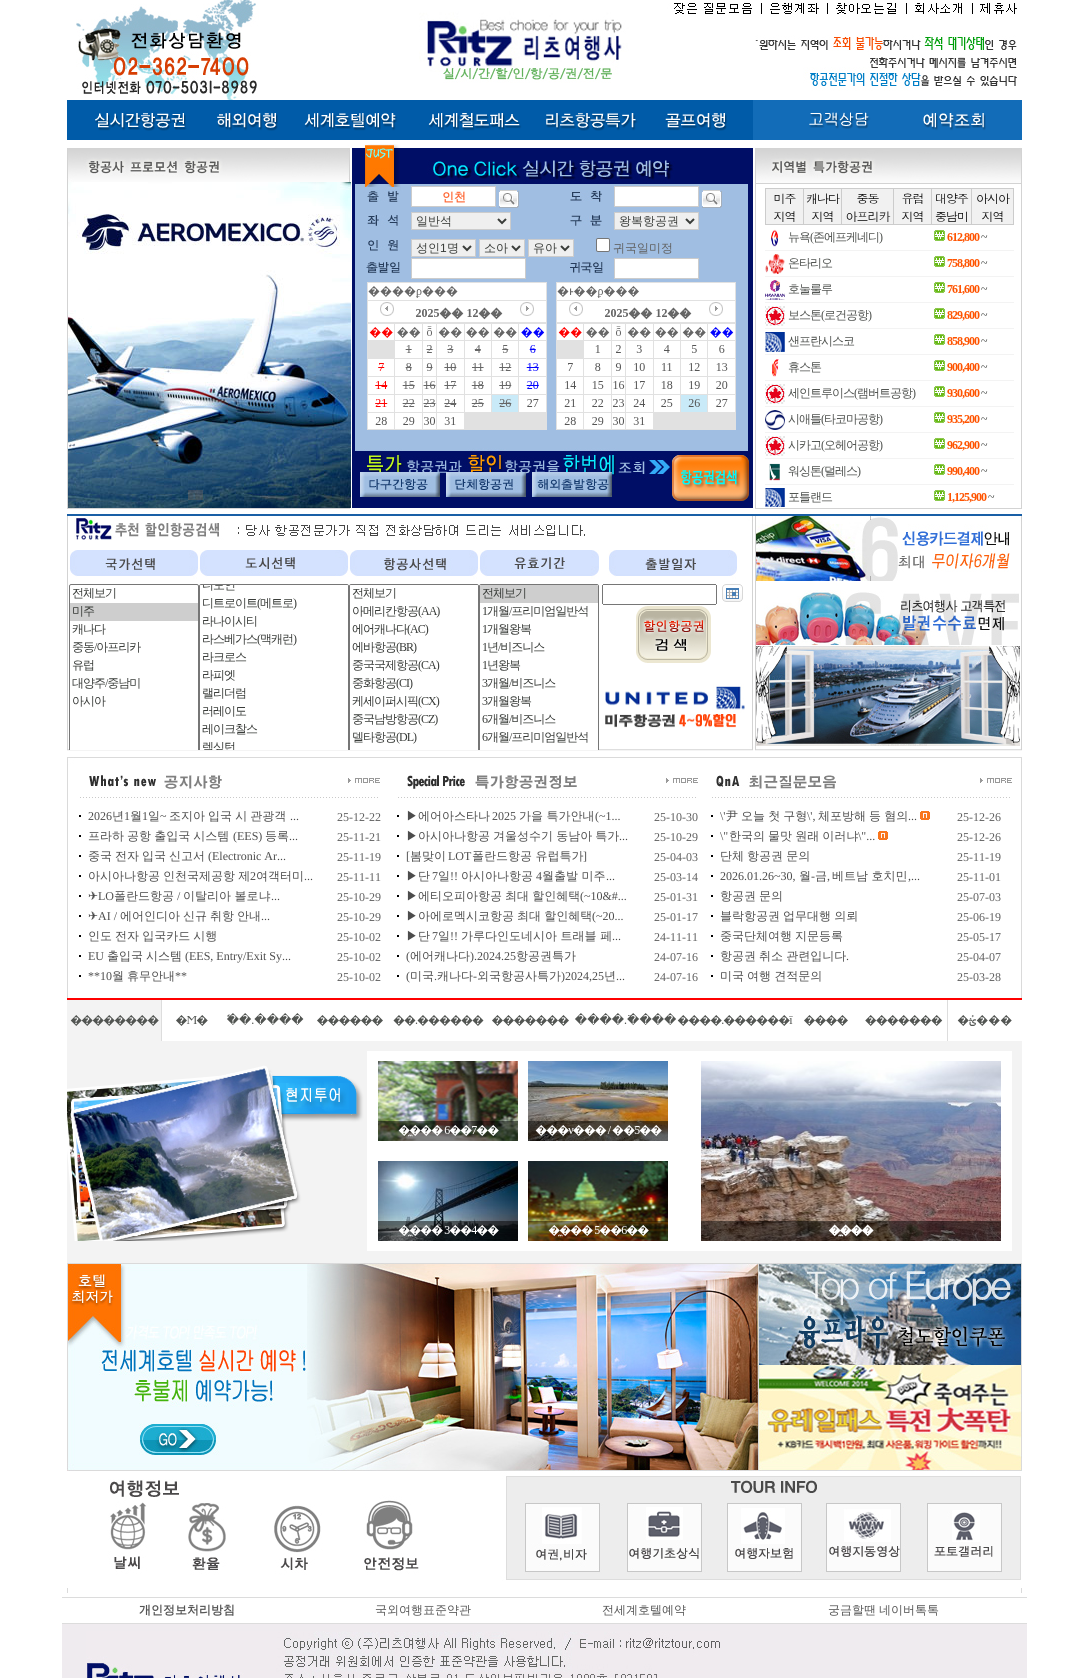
#include <cairo.h>
#include <math.h>
#include <stddef.h>

typedef struct { const char *family; double size; int italic, bold; unsigned color; } style_t;
static cairo_t *ctx;

static void ink(unsigned color) {
    cairo_set_source_rgb(ctx, (color >> 16) / 255.0, (color >> 8 & 255) / 255.0, (color & 255) / 255.0);
}

static void write(double x, double y, const char *s, const style_t *st) {
    cairo_select_font_face(ctx, st->family, st->italic ? CAIRO_FONT_SLANT_ITALIC : CAIRO_FONT_SLANT_NORMAL,
        st->bold ? CAIRO_FONT_WEIGHT_BOLD : CAIRO_FONT_WEIGHT_NORMAL);
    cairo_set_font_size(ctx, st->size);
    ink(st->color);
    cairo_move_to(ctx, x, y);
    cairo_show_text(ctx, s);
}

static void write_spaced(double x, double y, const char *s, double letter, double word) {
    cairo_move_to(ctx, x, y);
    while (*s) {
        char ch[5] = {0};
        int n = 0;
        do ch[n++] = *s++; while ((*s & 0xC0) == 0x80);
        cairo_show_text(ctx, ch);
        cairo_rel_move_to(ctx, letter + word * (*ch == ' '), 0);
    }
}

static void block(double x, double y, double w, double h, unsigned color) {
    ink(color);
    cairo_rectangle(ctx, x, y, w, h);
    cairo_fill(ctx);
}

static void round_path(double x, double y, double w, double h, double r) {
    cairo_new_sub_path(ctx);
    cairo_arc(ctx, x + w - r, y + h - r, r, 0, M_PI / 2);
    cairo_arc(ctx, x + r, y + h - r, r, M_PI / 2, M_PI);
    cairo_arc(ctx, x + r, y + r, r, M_PI, 1.5 * M_PI);
    cairo_arc(ctx, x + w - r, y + r, r, 1.5 * M_PI, 2 * M_PI);
    cairo_close_path(ctx);
}

static void paste(const char *path, double x, double y, double w, double h) {
    cairo_surface_t *image = cairo_image_surface_create_from_png(path);
    cairo_save(ctx);
    cairo_set_source_surface(ctx, image, x, y);
    cairo_rectangle(ctx, x, y, w, h);
    cairo_fill(ctx);
    cairo_restore(ctx);
    cairo_surface_destroy(image);
}

static const style_t s1 = {"WenQuanYi Zen Hei", 12, 0, 1, 0xff6633};
static const style_t s2 = {"WenQuanYi Zen Hei Medium", 12, 0, 0, 0x393c39};
static const style_t s3 = {"Liberation Sans", 12, 0, 0, 0x393c39};
static const style_t s4 = {"WenQuanYi Zen Hei Medium", 12, 0, 0, 0x606060};
static const style_t s5 = {"Liberation Serif", 12, 0, 0, 0x4c4c4c};
static const style_t s6 = {"WenQuanYi Zen Hei Medium", 12, 0, 0, 0x4c4c4c};
static const style_t s7 = {"Liberation Serif", 12, 0, 0, 0x606060};
static const style_t s8 = {"DejaVu Sans", 12, 0, 0, 0x4c4c4c};
static const style_t s9 = {"WenQuanYi Zen Hei", 12, 0, 1, 0x555555};
static const style_t s10 = {"WenQuanYi Zen Hei Medium", 12, 0, 0, 0x555555};

int main(void) {
    cairo_surface_t *surface = cairo_image_surface_create(CAIRO_FORMAT_RGB24, 1089, 1678);
    ctx = cairo_create(surface);
    cairo_font_options_t *options = cairo_font_options_create();
    cairo_font_options_set_hint_metrics(options, CAIRO_HINT_METRICS_OFF);
    cairo_font_options_set_hint_style(options, CAIRO_HINT_STYLE_NONE);
    cairo_set_font_options(ctx, options);
    cairo_set_miter_limit(ctx, 4);
    ink(0xffffff);
    cairo_paint(ctx);
    paste("pic1.png", 76, 0, 941, 100);
    block(67, 100, 955, 40, 0x005ba8);
    paste("pic2.png", 95, 100, 927, 40);
    paste("pic3.png", 67, 144, 955, 365);
    paste("pic4.png", 68, 182, 283, 326);
    paste("pic5.png", 365, 187, 35, 15);
    ink(0xffffff);
    cairo_rectangle(ctx, 411.5, 186.5, 84, 20);
    cairo_fill_preserve(ctx);
    ink(0xcccccc);
    cairo_set_line_width(ctx, 1);
    cairo_stroke(ctx);
    write(442, 201, "인천", &s1);
    paste("pic6.png", 498, 190, 21, 18);
    paste("pic7.png", 570, 191, 32, 11);
    ink(0xffffff);
    cairo_rectangle(ctx, 614.5, 186.5, 84, 20);
    cairo_fill_preserve(ctx);
    ink(0xcccccc);
    cairo_stroke(ctx);
    paste("pic6.png", 701, 190, 21, 18);
    paste("pic8.png", 367, 215, 31, 11);
    ink(0xefefef);
    cairo_rectangle(ctx, 411.5, 212.5, 99, 17);
    cairo_fill_preserve(ctx);
    ink(0xcccccc);
    cairo_stroke(ctx);
    cairo_new_path(ctx);
    cairo_move_to(ctx, 498, 219);
    cairo_line_to(ctx, 502, 223);
    cairo_line_to(ctx, 506, 219);
    ink(0x393c39);
    cairo_set_line_width(ctx, 2);
    cairo_stroke(ctx);
    write(416, 225, "일반석", &s2);
    paste("pic9.png", 570, 215, 32, 11);
    ink(0xefefef);
    cairo_rectangle(ctx, 614.5, 212.5, 84, 17);
    cairo_fill_preserve(ctx);
    ink(0xcccccc);
    cairo_set_line_width(ctx, 1);
    cairo_stroke(ctx);
    cairo_new_path(ctx);
    cairo_move_to(ctx, 686, 219);
    cairo_line_to(ctx, 690, 223);
    cairo_line_to(ctx, 694, 219);
    ink(0x393c39);
    cairo_set_line_width(ctx, 2);
    cairo_stroke(ctx);
    write(619, 225, "왕복항공권", &s2);
    paste("pic10.png", 368, 240, 30, 11);
    ink(0xefefef);
    cairo_rectangle(ctx, 411.5, 239.5, 64, 17);
    cairo_fill_preserve(ctx);
    ink(0xcccccc);
    cairo_set_line_width(ctx, 1);
    cairo_stroke(ctx);
    cairo_new_path(ctx);
    cairo_move_to(ctx, 463, 246);
    cairo_line_to(ctx, 467, 250);
    cairo_line_to(ctx, 471, 246);
    ink(0x393c39);
    cairo_set_line_width(ctx, 2);
    cairo_stroke(ctx);
    write(416, 252, "성인", &s2);
    write(440, 252, "1", &s3);
    write(447, 252, "명", &s2);
    ink(0xefefef);
    cairo_rectangle(ctx, 479.5, 239.5, 45, 17);
    cairo_fill_preserve(ctx);
    ink(0xcccccc);
    cairo_set_line_width(ctx, 1);
    cairo_stroke(ctx);
    cairo_new_path(ctx);
    cairo_move_to(ctx, 512, 246);
    cairo_line_to(ctx, 516, 250);
    cairo_line_to(ctx, 520, 246);
    ink(0x393c39);
    cairo_set_line_width(ctx, 2);
    cairo_stroke(ctx);
    write(484, 252, "소아", &s2);
    ink(0xefefef);
    cairo_rectangle(ctx, 528.5, 239.5, 45, 17);
    cairo_fill_preserve(ctx);
    ink(0xcccccc);
    cairo_set_line_width(ctx, 1);
    cairo_stroke(ctx);
    cairo_new_path(ctx);
    cairo_move_to(ctx, 561, 246);
    cairo_line_to(ctx, 565, 250);
    cairo_line_to(ctx, 569, 246);
    ink(0x393c39);
    cairo_set_line_width(ctx, 2);
    cairo_stroke(ctx);
    write(533, 252, "유아", &s2);
    ink(0xffffff);
    round_path(596.5, 238.5, 13, 13, 1.5);
    cairo_fill_preserve(ctx);
    ink(0x767676);
    cairo_set_line_width(ctx, 1);
    cairo_stroke(ctx);
    write(613, 252, "귀국일미정", &s4);
    paste("pic11.png", 366, 262, 34, 11);
    ink(0xffffff);
    cairo_rectangle(ctx, 411.5, 258.5, 114, 20);
    cairo_fill_preserve(ctx);
    ink(0xcccccc);
    cairo_stroke(ctx);
    paste("pic12.png", 570, 262, 33, 11);
    ink(0xffffff);
    cairo_rectangle(ctx, 614.5, 258.5, 84, 20);
    cairo_fill_preserve(ctx);
    ink(0xcccccc);
    cairo_stroke(ctx);
    paste("pic13.png", 367, 282, 369, 148);
    paste("pic14.png", 360, 472, 80, 25);
    paste("pic15.png", 446, 472, 80, 25);
    paste("pic16.png", 532, 472, 80, 25);
    paste("pic17.png", 672, 455, 77, 46);
    paste("pic18.png", 765, 188, 249, 319);
    paste("pic19.png", 67, 516, 955, 235);
    block(67, 514, 955, 2, 0x195fa6);
    paste("pic20.png", 74, 518, 511, 22);
    paste("pic21.png", 756, 516, 254, 65);
    paste("pic22.png", 756, 590, 263, 55);
    paste("pic23.png", 756, 646, 264, 100);
    paste("pic24.png", 69, 550, 676, 200);
    paste("pic25.png", 67, 757, 955, 836);
    paste("pic26.png", 89, 775, 133, 14);
    paste("pic27.png", 348, 778, 32, 5);
    paste("pic28.png", 80, 797, 298, 1);
    block(79, 815, 2, 2, 0x000000);
    write(88, 820, "2026", &s5);
    write(112, 820, "년", &s6);
    write(124, 820, "1", &s5);
    write(130, 820, "월", &s6);
    write(142, 820, "1", &s5);
    write(148, 820, "일", &s6);
    write(160, 820, "~", &s5);
    cairo_select_font_face(ctx, "WenQuanYi Zen Hei Medium", CAIRO_FONT_SLANT_NORMAL, CAIRO_FONT_WEIGHT_NORMAL);
    write_spaced(169, 820, "조지아 입국 시 관광객", 0, -0.5);
    write(290, 820, "...", &s5);
    write(337, 821, "25-12-22", &s7);
    block(79, 835, 2, 2, 0x000000);
    cairo_select_font_face(ctx, "WenQuanYi Zen Hei Medium", CAIRO_FONT_SLANT_NORMAL, CAIRO_FONT_WEIGHT_NORMAL);
    ink(0x4c4c4c);
    write_spaced(88, 840, "프라하 공항 출입국 시스템", 0, -0.5);
    write(233, 840, "(EES)", &s5);
    write(265, 840, "등록", &s6);
    write(289, 840, "...", &s5);
    write(337, 841, "25-11-21", &s7);
    block(79, 855, 2, 2, 0x000000);
    write(88, 860, "중국", &s6);
    write(115, 860, "전자", &s6);
    write(142, 860, "입국", &s6);
    write(169, 860, "신고서", &s6);
    write(208, 860, "(Electronic Ar...", &s5);
    write(337, 861, "25-11-19", &s7);
    block(79, 875, 2, 2, 0x000000);
    cairo_select_font_face(ctx, "WenQuanYi Zen Hei Medium", CAIRO_FONT_SLANT_NORMAL, CAIRO_FONT_WEIGHT_NORMAL);
    ink(0x4c4c4c);
    write_spaced(88, 880, "아시아나항공 인천국제공항 제", 0, -0.5);
    write(250, 880, "2", &s5);
    write(256, 880, "여객터미", &s6);
    write(304, 880, "...", &s5);
    write(337, 881, "25-11-11", &s7);
    block(79, 895, 2, 2, 0x000000);
    write(88, 900, "✈", &s8);
    write(98, 900, "LO", &s5);
    write(114, 900, "폴란드항공", &s6);
    write(177, 900, "/", &s5);
    write(183, 900, "이탈리아 볼로냐", &s6);
    write(271, 900, "...", &s5);
    write(337, 901, "25-10-29", &s7);
    block(79, 915, 2, 2, 0x000000);
    write(88, 920, "✈", &s8);
    write(98, 920, "AI /", &s5);
    write(120, 920, "에어인디아", &s6);
    write(183, 920, "신규", &s6);
    write(210, 920, "취항", &s6);
    write(237, 920, "안내", &s6);
    write(261, 920, "...", &s5);
    write(337, 921, "25-10-29", &s7);
    block(79, 935, 2, 2, 0x000000);
    cairo_select_font_face(ctx, "WenQuanYi Zen Hei Medium", CAIRO_FONT_SLANT_NORMAL, CAIRO_FONT_WEIGHT_NORMAL);
    ink(0x4c4c4c);
    write_spaced(88, 940, "인도 전자 입국카드 시행", 0, -0.5);
    write(337, 941, "25-10-02", &s7);
    block(79, 955, 2, 2, 0x000000);
    write(88, 960, "EU", &s5);
    write(107, 960, "출입국", &s6);
    write(146, 960, "시스템", &s6);
    write(185, 960, "(EES, Entry/Exit Sy...", &s5);
    write(337, 961, "25-10-02", &s7);
    block(79, 975, 2, 2, 0x000000);
    write(88, 980, "**10", &s5);
    cairo_select_font_face(ctx, "WenQuanYi Zen Hei Medium", CAIRO_FONT_SLANT_NORMAL, CAIRO_FONT_WEIGHT_NORMAL);
    write_spaced(112, 980, "월 휴무안내", 0, -0.5);
    write(175, 980, "**", &s5);
    write(337, 981, "25-10-02", &s7);
    paste("pic29.png", 407, 775, 170, 14);
    paste("pic27.png", 666, 778, 32, 5);
    paste("pic28.png", 398, 797, 298, 1);
    block(397, 815, 2, 2, 0x000000);
    write(406, 820, "▶에어아스타나", &s6);
    write(492, 820, "2025", &s5);
    write(519, 820, "가을 특가안내", &s6);
    write(595, 820, "(~1...", &s5);
    write(654, 821, "25-10-30", &s7);
    block(397, 835, 2, 2, 0x000000);
    cairo_select_font_face(ctx, "WenQuanYi Zen Hei Medium", CAIRO_FONT_SLANT_NORMAL, CAIRO_FONT_WEIGHT_NORMAL);
    ink(0x4c4c4c);
    write_spaced(406, 840, "▶아시아나항공 겨울성수기 동남아 특가", 0, -0.5);
    write(619, 840, "...", &s5);
    write(654, 841, "25-10-29", &s7);
    block(397, 855, 2, 2, 0x000000);
    write(406, 860, "[", &s5);
    write(410, 860, "봄맞이", &s6);
    write(448, 860, "LOT", &s5);
    write(472, 860, "폴란드항공 유럽특가", &s6);
    write(583, 860, "]", &s5);
    write(654, 861, "25-04-03", &s7);
    block(397, 875, 2, 2, 0x000000);
    write(406, 880, "▶단", &s6);
    write(432, 880, "7", &s5);
    write(438, 880, "일", &s6);
    write(450, 880, "!!", &s5);
    write(461, 880, "아시아나항공", &s6);
    write(536, 880, "4", &s5);
    write(542, 880, "월출발 미주", &s6);
    write(606, 880, "...", &s5);
    write(654, 881, "25-03-14", &s7);
    block(397, 895, 2, 2, 0x000000);
    cairo_select_font_face(ctx, "WenQuanYi Zen Hei Medium", CAIRO_FONT_SLANT_NORMAL, CAIRO_FONT_WEIGHT_NORMAL);
    ink(0x4c4c4c);
    write_spaced(406, 900, "▶에티오피아항공 최대 할인혜택", 0, -0.5);
    write(580, 900, "(~10&#...", &s5);
    write(654, 901, "25-01-31", &s7);
    block(397, 915, 2, 2, 0x000000);
    cairo_select_font_face(ctx, "WenQuanYi Zen Hei Medium", CAIRO_FONT_SLANT_NORMAL, CAIRO_FONT_WEIGHT_NORMAL);
    ink(0x4c4c4c);
    write_spaced(406, 920, "▶아에로멕시코항공 최대 할인혜택", 0, -0.5);
    write(592, 920, "(~20...", &s5);
    write(654, 921, "25-01-17", &s7);
    block(397, 935, 2, 2, 0x000000);
    write(406, 940, "▶단", &s6);
    write(432, 940, "7", &s5);
    write(438, 940, "일", &s6);
    write(450, 940, "!!", &s5);
    write(461, 940, "가루다인도네시아 트래블 페", &s6);
    write(612, 940, "...", &s5);
    write(654, 941, "24-11-11", &s7);
    block(397, 955, 2, 2, 0x000000);
    write(406, 960, "(", &s5);
    write(410, 960, "에어캐나다", &s6);
    write(470, 960, ").2024.25", &s5);
    write(516, 960, "항공권특가", &s6);
    write(654, 961, "24-07-16", &s7);
    block(397, 975, 2, 2, 0x000000);
    write(406, 980, "(", &s5);
    write(410, 980, "미국", &s6);
    write(437, 980, "캐나다", &s6);
    write(473, 980, "-", &s5);
    write(477, 980, "외국항공사특가", &s6);
    write(561, 980, ")2024,25", &s5);
    write(604, 980, "년", &s6);
    write(434, 980, ".", &s5);
    write(616, 980, "...", &s5);
    write(654, 981, "24-07-16", &s7);
    paste("pic30.png", 716, 775, 120, 14);
    paste("pic27.png", 980, 778, 32, 5);
    paste("pic28.png", 712, 797, 298, 1);
    block(711, 815, 2, 2, 0x000000);
    write(720, 820, "\\'", &s5);
    cairo_select_font_face(ctx, "WenQuanYi Zen Hei Medium", CAIRO_FONT_SLANT_NORMAL, CAIRO_FONT_WEIGHT_NORMAL);
    write_spaced(726, 820, "尹 오늘 첫 구형", 0, -0.5);
    write(807, 820, "\\',", &s5);
    cairo_select_font_face(ctx, "WenQuanYi Zen Hei Medium", CAIRO_FONT_SLANT_NORMAL, CAIRO_FONT_WEIGHT_NORMAL);
    write_spaced(818, 820, "체포방해 등 혐의", 0, -0.5);
    paste("pic31.png", 920, 811, 10, 9);
    write(908, 820, "...", &s5);
    write(957, 821, "25-12-26", &s7);
    block(711, 835, 2, 2, 0x000000);
    write(720, 840, "\\\"", &s5);
    cairo_select_font_face(ctx, "WenQuanYi Zen Hei Medium", CAIRO_FONT_SLANT_NORMAL, CAIRO_FONT_WEIGHT_NORMAL);
    write_spaced(729, 840, "한국의 물맛 원래 이러냐", 0, -0.5);
    write(858, 840, "\\\"...", &s5);
    paste("pic31.png", 878, 831, 10, 9);
    write(957, 841, "25-12-26", &s7);
    block(711, 855, 2, 2, 0x000000);
    cairo_select_font_face(ctx, "WenQuanYi Zen Hei Medium", CAIRO_FONT_SLANT_NORMAL, CAIRO_FONT_WEIGHT_NORMAL);
    ink(0x4c4c4c);
    write_spaced(720, 860, "단체 항공권 문의", 0, -0.5);
    write(957, 861, "25-11-19", &s7);
    block(711, 875, 2, 2, 0x000000);
    write(720, 880, "2026.01.26~30,", &s5);
    write(799, 880, "월", &s6);
    write(811, 880, "-", &s5);
    write(815, 880, "금", &s6);
    write(832, 880, "베트남 호치민", &s6);
    write(827, 880, ",", &s5);
    write(908, 880, ",...", &s5);
    write(957, 881, "25-11-01", &s7);
    block(711, 895, 2, 2, 0x000000);
    cairo_select_font_face(ctx, "WenQuanYi Zen Hei Medium", CAIRO_FONT_SLANT_NORMAL, CAIRO_FONT_WEIGHT_NORMAL);
    ink(0x4c4c4c);
    write_spaced(720, 900, "항공권 문의", 0, -0.5);
    write(957, 901, "25-07-03", &s7);
    block(711, 915, 2, 2, 0x000000);
    cairo_select_font_face(ctx, "WenQuanYi Zen Hei Medium", CAIRO_FONT_SLANT_NORMAL, CAIRO_FONT_WEIGHT_NORMAL);
    ink(0x4c4c4c);
    write_spaced(720, 920, "블락항공권 업무대행 의뢰", 0, -0.5);
    write(957, 921, "25-06-19", &s7);
    block(711, 935, 2, 2, 0x000000);
    cairo_select_font_face(ctx, "WenQuanYi Zen Hei Medium", CAIRO_FONT_SLANT_NORMAL, CAIRO_FONT_WEIGHT_NORMAL);
    ink(0x4c4c4c);
    write_spaced(720, 940, "중국단체여행 지문등록", 0, -0.5);
    write(957, 941, "25-05-17", &s7);
    block(711, 955, 2, 2, 0x000000);
    cairo_select_font_face(ctx, "WenQuanYi Zen Hei Medium", CAIRO_FONT_SLANT_NORMAL, CAIRO_FONT_WEIGHT_NORMAL);
    ink(0x4c4c4c);
    write_spaced(720, 960, "항공권 취소 관련입니다", 0, -0.5);
    write(846, 960, ".", &s5);
    write(957, 961, "25-04-07", &s7);
    block(711, 975, 2, 2, 0x000000);
    cairo_select_font_face(ctx, "WenQuanYi Zen Hei Medium", CAIRO_FONT_SLANT_NORMAL, CAIRO_FONT_WEIGHT_NORMAL);
    ink(0x4c4c4c);
    write_spaced(720, 980, "미국 여행 견적문의", 0, -0.5);
    write(957, 981, "25-03-28", &s7);
    paste("pic32.png", 67, 998, 955, 265);
    paste("pic33.png", 67, 1263, 955, 208);
    paste("pic34.png", 67, 1471, 955, 117);
    block(62, 1597, 965, 1, 0xdcdcdc);
    write(139, 1614, "개인정보처리방침", &s9);
    write(375, 1614, "국외여행표준약관", &s10);
    write(602, 1614, "전세계호텔예약", &s10);
    write_spaced(828, 1614, "궁금할땐 네이버톡톡", 0, -0.5);
    block(62, 1623, 965, 1, 0xdcdcdc);
    block(62, 1624, 965, 54, 0xefebef);
    paste("pic35.png", 86, 1631, 634, 47);
    cairo_surface_write_to_png(surface, "screenshot.png");
    cairo_font_options_destroy(options);
    cairo_destroy(ctx);
    cairo_surface_destroy(surface);
    return 0;
}
